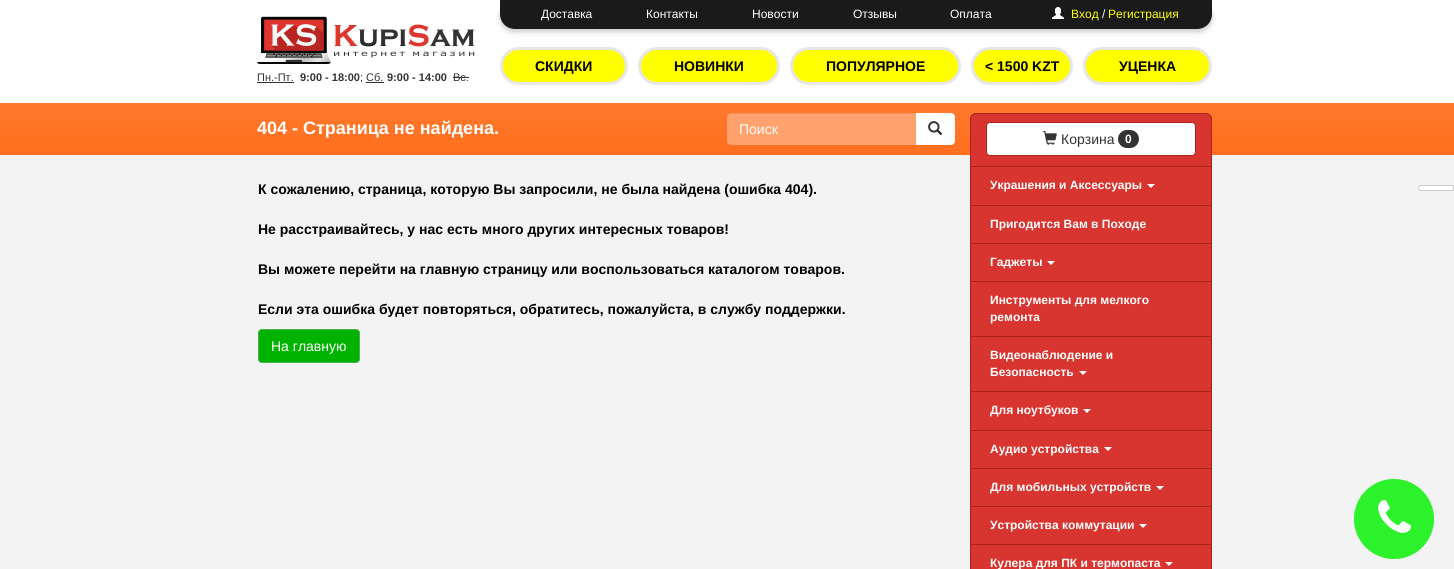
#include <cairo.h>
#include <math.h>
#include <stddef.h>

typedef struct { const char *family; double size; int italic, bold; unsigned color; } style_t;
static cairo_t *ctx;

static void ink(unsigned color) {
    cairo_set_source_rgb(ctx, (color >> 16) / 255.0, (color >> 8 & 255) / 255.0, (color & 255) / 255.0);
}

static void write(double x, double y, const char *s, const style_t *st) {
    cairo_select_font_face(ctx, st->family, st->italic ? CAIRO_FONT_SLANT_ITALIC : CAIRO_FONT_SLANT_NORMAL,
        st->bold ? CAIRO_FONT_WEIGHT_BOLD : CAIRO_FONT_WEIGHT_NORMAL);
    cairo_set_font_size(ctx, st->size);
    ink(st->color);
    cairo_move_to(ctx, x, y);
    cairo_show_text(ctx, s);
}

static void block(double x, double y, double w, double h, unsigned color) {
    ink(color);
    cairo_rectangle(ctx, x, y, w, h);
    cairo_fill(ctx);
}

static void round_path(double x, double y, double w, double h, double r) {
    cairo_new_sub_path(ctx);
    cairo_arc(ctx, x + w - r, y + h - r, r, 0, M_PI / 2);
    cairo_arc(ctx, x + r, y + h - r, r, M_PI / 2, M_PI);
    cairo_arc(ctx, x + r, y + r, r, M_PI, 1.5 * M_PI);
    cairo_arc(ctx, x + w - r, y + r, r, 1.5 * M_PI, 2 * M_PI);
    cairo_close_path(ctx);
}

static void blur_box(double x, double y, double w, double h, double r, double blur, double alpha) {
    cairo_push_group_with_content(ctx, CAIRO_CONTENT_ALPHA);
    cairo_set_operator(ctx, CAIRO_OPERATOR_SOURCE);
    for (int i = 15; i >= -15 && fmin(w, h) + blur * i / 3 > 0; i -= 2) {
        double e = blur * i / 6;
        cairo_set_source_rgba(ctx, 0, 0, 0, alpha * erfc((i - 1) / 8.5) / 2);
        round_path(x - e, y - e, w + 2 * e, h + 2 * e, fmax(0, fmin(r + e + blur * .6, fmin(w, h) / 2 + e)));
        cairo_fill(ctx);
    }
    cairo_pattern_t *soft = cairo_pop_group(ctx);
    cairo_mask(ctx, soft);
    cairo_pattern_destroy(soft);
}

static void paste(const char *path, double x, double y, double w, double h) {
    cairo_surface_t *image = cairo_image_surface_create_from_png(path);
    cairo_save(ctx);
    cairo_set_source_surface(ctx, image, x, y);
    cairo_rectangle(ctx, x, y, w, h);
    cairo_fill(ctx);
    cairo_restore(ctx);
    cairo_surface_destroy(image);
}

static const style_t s1 = {"Liberation Sans", 12, 0, 0, 0xffffff};
static const style_t s2 = {"Liberation Sans", 12, 0, 0, 0xffff00};
static const style_t s3 = {"Liberation Sans", 14, 0, 1, 0x000000};
static const style_t s4 = {"Liberation Sans", 11, 0, 0, 0x333333};
static const style_t s5 = {"Liberation Sans", 11, 0, 1, 0x333333};
static const style_t s6 = {"Liberation Sans", 18, 0, 1, 0xffffff};
static const style_t s7 = {"Liberation Sans", 14, 0, 0, 0xffffff};
static const style_t s8 = {"Liberation Sans", 14, 0, 0, 0x333333};
static const style_t s9 = {"Liberation Sans", 12, 0, 1, 0xffffff};

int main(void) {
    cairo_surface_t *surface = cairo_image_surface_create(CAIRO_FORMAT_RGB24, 1454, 569);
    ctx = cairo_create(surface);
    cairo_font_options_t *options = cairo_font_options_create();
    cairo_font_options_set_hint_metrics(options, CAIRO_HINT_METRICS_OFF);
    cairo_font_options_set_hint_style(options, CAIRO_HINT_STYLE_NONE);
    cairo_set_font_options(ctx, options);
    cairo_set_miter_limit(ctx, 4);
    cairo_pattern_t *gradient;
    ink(0xf3f3f3);
    cairo_paint(ctx);
    block(0, 0, 1454, 103, 0xffffff);
    ink(0x323232);
    blur_box(500, 3, 712, 29, 15, 2.5, 0.25);
    ink(0x1a1a1a);
    cairo_new_path(ctx);
    cairo_move_to(ctx, 500, 0);
    cairo_line_to(ctx, 1212, 0);
    cairo_line_to(ctx, 1212, 14);
    cairo_curve_to(ctx, 1212, 22.5, 1205.5, 29, 1197, 29);
    cairo_line_to(ctx, 515, 29);
    cairo_curve_to(ctx, 506.5, 29, 500, 22.5, 500, 14);
    cairo_close_path(ctx);
    cairo_fill(ctx);
    write(541, 18, "Доставка", &s1);
    write(646, 18, "Контакты", &s1);
    write(752, 18, "Новости", &s1);
    write(853, 18, "Отзывы", &s1);
    write(950, 18, "Оплата", &s1);
    paste("pic1.png", 1052, 7, 12, 12);
    write(1071, 18, "Вход", &s2);
    write(1102, 18, "/", &s1);
    write(1108, 18, "Регистрация", &s2);
    round_path(501.5, 48.5, 125, 35, 17.5);
    cairo_fill_preserve(ctx);
    ink(0xe6e6e6);
    cairo_set_line_width(ctx, 3);
    cairo_stroke(ctx);
    write(535, 71, "СКИДКИ", &s3);
    ink(0xffff00);
    round_path(639.5, 48.5, 139, 35, 17.5);
    cairo_fill_preserve(ctx);
    ink(0xe6e6e6);
    cairo_stroke(ctx);
    write(674, 71, "НОВИНКИ", &s3);
    ink(0xffff00);
    round_path(791.5, 48.5, 168, 35, 17.5);
    cairo_fill_preserve(ctx);
    ink(0xe6e6e6);
    cairo_stroke(ctx);
    write(826, 71, "ПОПУЛЯРНОЕ", &s3);
    ink(0xffff00);
    round_path(972.5, 48.5, 99, 35, 17.5);
    cairo_fill_preserve(ctx);
    ink(0xe6e6e6);
    cairo_stroke(ctx);
    write(985, 71, "< 1500 KZT", &s3);
    ink(0xffff00);
    round_path(1084.5, 48.5, 126, 35, 17.5);
    cairo_fill_preserve(ctx);
    ink(0xe6e6e6);
    cairo_stroke(ctx);
    write(1119, 71, "УЦЕНКА", &s3);
    paste("pic2.png", 257, 16, 218, 48);
    write(257, 81, "Пн.-Пт.", &s4);
    block(257, 82, 37, 1, 0x333333);
    write(300, 81, "9:00 - 18:00", &s5);
    write(360, 81, "; Сб.", &s4);
    block(366, 82, 18, 1, 0x333333);
    write(387, 81, "9:00 - 14:00", &s5);
    write(453, 81, "Вс.", &s4);
    block(453, 77, 16, 1, 0x333333);
    gradient = cairo_pattern_create_linear(727, 155, 727, 103);
    cairo_pattern_add_color_stop_rgba(gradient, 0.25, 1, 0.443, 0.129, 1);
    cairo_pattern_add_color_stop_rgba(gradient, 0.75, 1, 0.467, 0.161, 1);
    cairo_pattern_add_color_stop_rgba(gradient, 1, 1, 0.467, 0.161, 1);
    cairo_set_source(ctx, gradient);
    cairo_pattern_destroy(gradient);
    cairo_rectangle(ctx, 0, 103, 1454, 52);
    cairo_fill(ctx);
    write(257, 134, "404 - Cтраница не найдена.", &s6);
    write(258, 194, "К сожалению, страница, которую Вы запросили, не была найдена (ошибка 404).", &s3);
    write(258, 234, "Не расстраивайтесь, у нас есть много других интересных товаров!", &s3);
    write(258, 274, "Вы можете перейти на главную страницу или воспользоваться каталогом товаров.", &s3);
    write(258, 314, "Если эта ошибка будет повторяться, обратитесь, пожалуйста, в службу поддержки.", &s3);
    ink(0x00b300);
    round_path(258.5, 329.5, 101, 33, 3.5);
    cairo_fill_preserve(ctx);
    ink(0x4cae4c);
    cairo_set_line_width(ctx, 1);
    cairo_stroke(ctx);
    write(271, 351, "На главную", &s7);
    ink(0xd93530);
    round_path(970.5, 113.5, 241, 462, 5.5);
    cairo_fill_preserve(ctx);
    ink(0xab221d);
    cairo_stroke(ctx);
    ink(0xffffff);
    round_path(986.5, 122.5, 209, 33, 3.5);
    cairo_fill_preserve(ctx);
    ink(0xab221d);
    cairo_stroke(ctx);
    paste("pic3.png", 1043, 131, 14, 14);
    write(1061, 144, "Корзина", &s8);
    round_path(1118, 130, 21, 18, 9);
    cairo_fill(ctx);
    write(1125, 143, "0", &s9);
    block(970, 166, 242, 1, 0xab221d);
    write(990, 189, "Украшения и Аксессуары", &s9);
    cairo_new_path(ctx);
    cairo_move_to(ctx, 1147, 184);
    cairo_line_to(ctx, 1155, 184);
    cairo_line_to(ctx, 1151, 188);
    cairo_close_path(ctx);
    cairo_fill(ctx);
    block(970, 205, 242, 1, 0xab221d);
    write(990, 228, "Пригодится Вам в Походе", &s9);
    block(970, 243, 242, 1, 0xab221d);
    write(990, 266, "Гаджеты", &s9);
    cairo_new_path(ctx);
    cairo_move_to(ctx, 1047, 261);
    cairo_line_to(ctx, 1055, 261);
    cairo_line_to(ctx, 1051, 265);
    cairo_close_path(ctx);
    cairo_fill(ctx);
    block(970, 281, 242, 1, 0xab221d);
    write(990, 304, "Инструменты для мелкого", &s9);
    write(990, 321, "ремонта", &s9);
    block(970, 336, 242, 1, 0xab221d);
    write(990, 359, "Видеонаблюдение и", &s9);
    write(990, 376, "Безопасность", &s9);
    cairo_new_path(ctx);
    cairo_move_to(ctx, 1079, 371);
    cairo_line_to(ctx, 1087, 371);
    cairo_line_to(ctx, 1083, 375);
    cairo_close_path(ctx);
    cairo_fill(ctx);
    block(970, 391, 242, 1, 0xab221d);
    write(990, 414, "Для ноутбуков", &s9);
    cairo_new_path(ctx);
    cairo_move_to(ctx, 1083, 409);
    cairo_line_to(ctx, 1091, 409);
    cairo_line_to(ctx, 1087, 413);
    cairo_close_path(ctx);
    cairo_fill(ctx);
    block(970, 430, 242, 1, 0xab221d);
    write(990, 453, "Аудио устройства", &s9);
    cairo_new_path(ctx);
    cairo_move_to(ctx, 1104, 447);
    cairo_line_to(ctx, 1112, 447);
    cairo_line_to(ctx, 1108, 451);
    cairo_close_path(ctx);
    cairo_fill(ctx);
    block(970, 468, 242, 1, 0xab221d);
    write(990, 491, "Для мобильных устройств", &s9);
    cairo_new_path(ctx);
    cairo_move_to(ctx, 1156, 486);
    cairo_line_to(ctx, 1164, 486);
    cairo_line_to(ctx, 1160, 490);
    cairo_close_path(ctx);
    cairo_fill(ctx);
    block(970, 506, 242, 1, 0xab221d);
    write(990, 529, "Устройства коммутации", &s9);
    cairo_new_path(ctx);
    cairo_move_to(ctx, 1139, 524);
    cairo_line_to(ctx, 1147, 524);
    cairo_line_to(ctx, 1143, 528);
    cairo_close_path(ctx);
    cairo_fill(ctx);
    block(970, 544, 242, 1, 0xab221d);
    write(990, 567, "Кулера для ПК и термопаста", &s9);
    cairo_new_path(ctx);
    cairo_move_to(ctx, 1165, 562);
    cairo_line_to(ctx, 1173, 562);
    cairo_line_to(ctx, 1169, 566);
    cairo_close_path(ctx);
    cairo_fill(ctx);
    ink(0xffa26d);
    cairo_new_path(ctx);
    cairo_move_to(ctx, 731, 113);
    cairo_line_to(ctx, 917, 113);
    cairo_line_to(ctx, 917, 145);
    cairo_line_to(ctx, 731, 145);
    cairo_curve_to(ctx, 729, 145, 727, 143, 727, 141);
    cairo_line_to(ctx, 727, 117);
    cairo_curve_to(ctx, 727, 115, 729, 113, 731, 113);
    cairo_close_path(ctx);
    cairo_fill(ctx);
    cairo_set_source_rgba(ctx, 0, 0, 0, 0.07);
    cairo_new_path(ctx);
    cairo_move_to(ctx, 731, 114);
    cairo_line_to(ctx, 917, 114);
    cairo_line_to(ctx, 917, 113);
    cairo_line_to(ctx, 731, 113);
    cairo_curve_to(ctx, 728, 113, 727, 115, 727, 118);
    cairo_curve_to(ctx, 727, 116, 729, 114, 731, 114);
    cairo_close_path(ctx);
    cairo_fill(ctx);
    write(739, 134, "Поиск", &s7);
    cairo_new_path(ctx);
    cairo_move_to(ctx, 916, 113);
    cairo_line_to(ctx, 951, 113);
    cairo_curve_to(ctx, 953, 113, 955, 115, 955, 117);
    cairo_line_to(ctx, 955, 141);
    cairo_curve_to(ctx, 955, 143, 953, 145, 951, 145);
    cairo_line_to(ctx, 916, 145);
    cairo_close_path(ctx);
    cairo_fill(ctx);
    paste("pic4.png", 928, 121, 15, 14);
    cairo_new_path(ctx);
    cairo_move_to(ctx, 1421, 185.5);
    cairo_line_to(ctx, 1453.5, 185.5);
    cairo_line_to(ctx, 1453.5, 190.5);
    cairo_line_to(ctx, 1421, 190.5);
    cairo_curve_to(ctx, 1419.5, 190.5, 1418.5, 189.5, 1418.5, 188);
    cairo_curve_to(ctx, 1418.5, 186.5, 1419.5, 185.5, 1421, 185.5);
    cairo_close_path(ctx);
    cairo_fill_preserve(ctx);
    ink(0xcccccc);
    cairo_stroke(ctx);
    ink(0x92f892);
    cairo_arc(ctx, 1394, 519, 40, 0, 2 * M_PI);
    cairo_fill(ctx);
    cairo_set_source_rgba(ctx, 0, 0.941, 0, 0.7);
    cairo_arc(ctx, 1394, 519, 40, 0, 2 * M_PI);
    cairo_fill(ctx);
    paste("pic5.png", 1378, 500, 33, 33);
    cairo_surface_write_to_png(surface, "screenshot.png");
    cairo_font_options_destroy(options);
    cairo_destroy(ctx);
    cairo_surface_destroy(surface);
    return 0;
}
